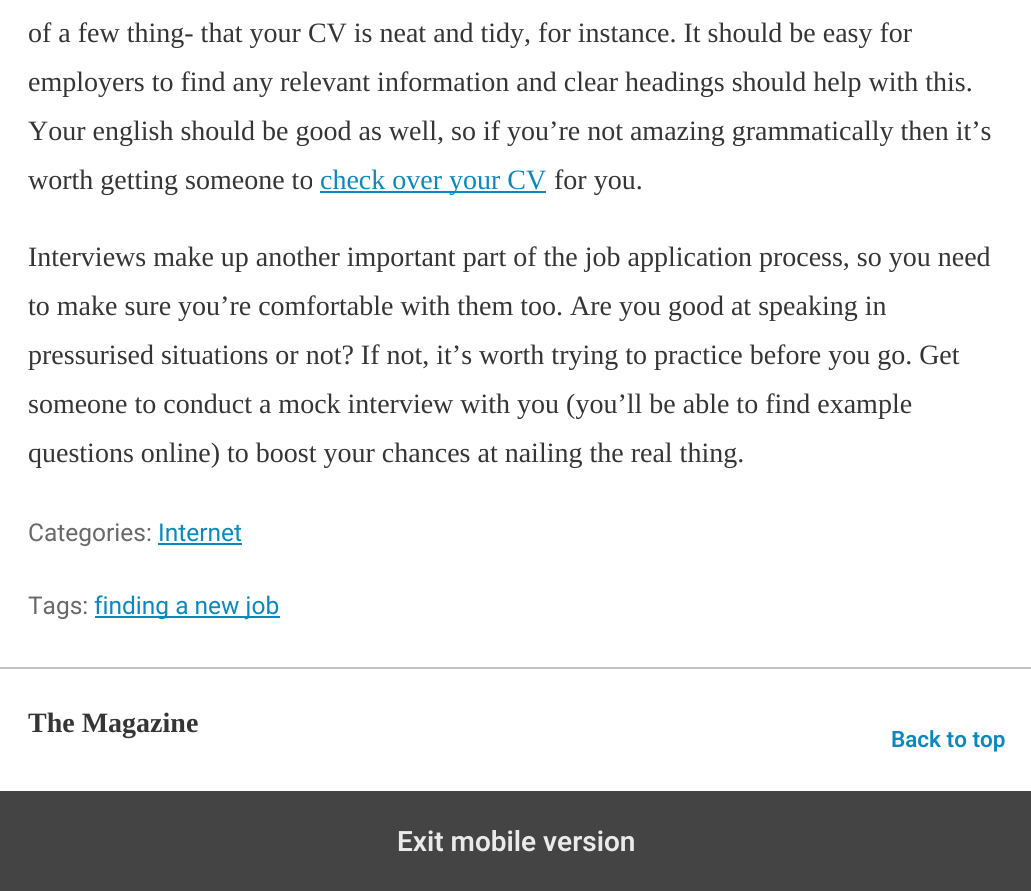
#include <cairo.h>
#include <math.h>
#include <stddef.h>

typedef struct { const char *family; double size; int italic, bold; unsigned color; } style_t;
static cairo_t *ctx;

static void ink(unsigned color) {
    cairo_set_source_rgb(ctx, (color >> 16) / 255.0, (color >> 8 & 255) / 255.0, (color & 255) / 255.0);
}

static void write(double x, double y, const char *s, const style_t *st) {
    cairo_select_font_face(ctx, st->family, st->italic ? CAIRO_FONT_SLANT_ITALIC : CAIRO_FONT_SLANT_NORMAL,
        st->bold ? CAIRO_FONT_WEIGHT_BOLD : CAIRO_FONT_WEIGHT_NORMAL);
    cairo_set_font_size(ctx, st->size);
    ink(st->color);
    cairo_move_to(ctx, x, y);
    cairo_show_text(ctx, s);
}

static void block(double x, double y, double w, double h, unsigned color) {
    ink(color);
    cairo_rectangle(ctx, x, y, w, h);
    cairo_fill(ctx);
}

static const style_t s1 = {"Liberation Serif", 28, 0, 0, 0x353535};
static const style_t s2 = {"Liberation Serif", 28, 0, 0, 0x0a89c0};
static const style_t s3 = {"Roboto", 24.5, 0, 0, 0x696969};
static const style_t s4 = {"Roboto", 24.5, 0, 0, 0x0a89c0};
static const style_t s5 = {"Liberation Serif", 28, 0, 1, 0x353535};
static const style_t s6 = {"Roboto SemiBold", 22.5, 0, 0, 0x0a89c0};
static const style_t s7 = {"Roboto SemiBold", 28, 0, 0, 0xeaeaea};

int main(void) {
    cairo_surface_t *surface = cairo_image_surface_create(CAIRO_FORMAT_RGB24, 1031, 891);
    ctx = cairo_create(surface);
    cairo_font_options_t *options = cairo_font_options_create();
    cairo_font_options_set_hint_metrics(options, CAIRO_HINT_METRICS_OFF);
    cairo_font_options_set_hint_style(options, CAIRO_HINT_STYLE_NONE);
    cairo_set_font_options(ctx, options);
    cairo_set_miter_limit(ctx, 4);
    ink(0xffffff);
    cairo_paint(ctx);
    write(28, 42, "of a few thing- that your CV is neat and tidy, for instance. It should be easy for", &s1);
    write(28, 91, "employers to find any relevant information and clear headings should help with this.", &s1);
    write(28, 140, "Your english should be good as well, so if you’re not amazing grammatically then it’s", &s1);
    write(28, 189, "worth getting someone to", &s1);
    block(320, 191, 226, 2, 0x0a89c0);
    write(320, 189, "check over your CV", &s2);
    write(554, 189, "for you.", &s1);
    write(28, 266, "Interviews make up another important part of the job application process, so you need", &s1);
    write(28, 315, "to make sure you’re comfortable with them too. Are you good at speaking in", &s1);
    write(28, 364, "pressurised situations or not? If not, it’s worth trying to practice before you go. Get", &s1);
    write(28, 413, "someone to conduct a mock interview with you (you’ll be able to find example", &s1);
    write(28, 462, "questions online) to boost your chances at nailing the real thing.", &s1);
    write(28, 541, "Categories:", &s3);
    write(158, 541, "Internet", &s4);
    block(158, 543, 84, 2, 0x0a89c0);
    write(28, 614, "Tags:", &s3);
    block(95, 616, 185, 2, 0x0a89c0);
    write(94, 614, "finding a new job", &s4);
    block(0, 667, 1031, 2, 0xc2c2c2);
    write(28, 732, "The Magazine", &s5);
    write(891, 747, "Back to top", &s6);
    block(0, 791, 1031, 100, 0x444444);
    write(397, 851, "Exit mobile version", &s7);
    cairo_surface_write_to_png(surface, "screenshot.png");
    cairo_font_options_destroy(options);
    cairo_destroy(ctx);
    cairo_surface_destroy(surface);
    return 0;
}
